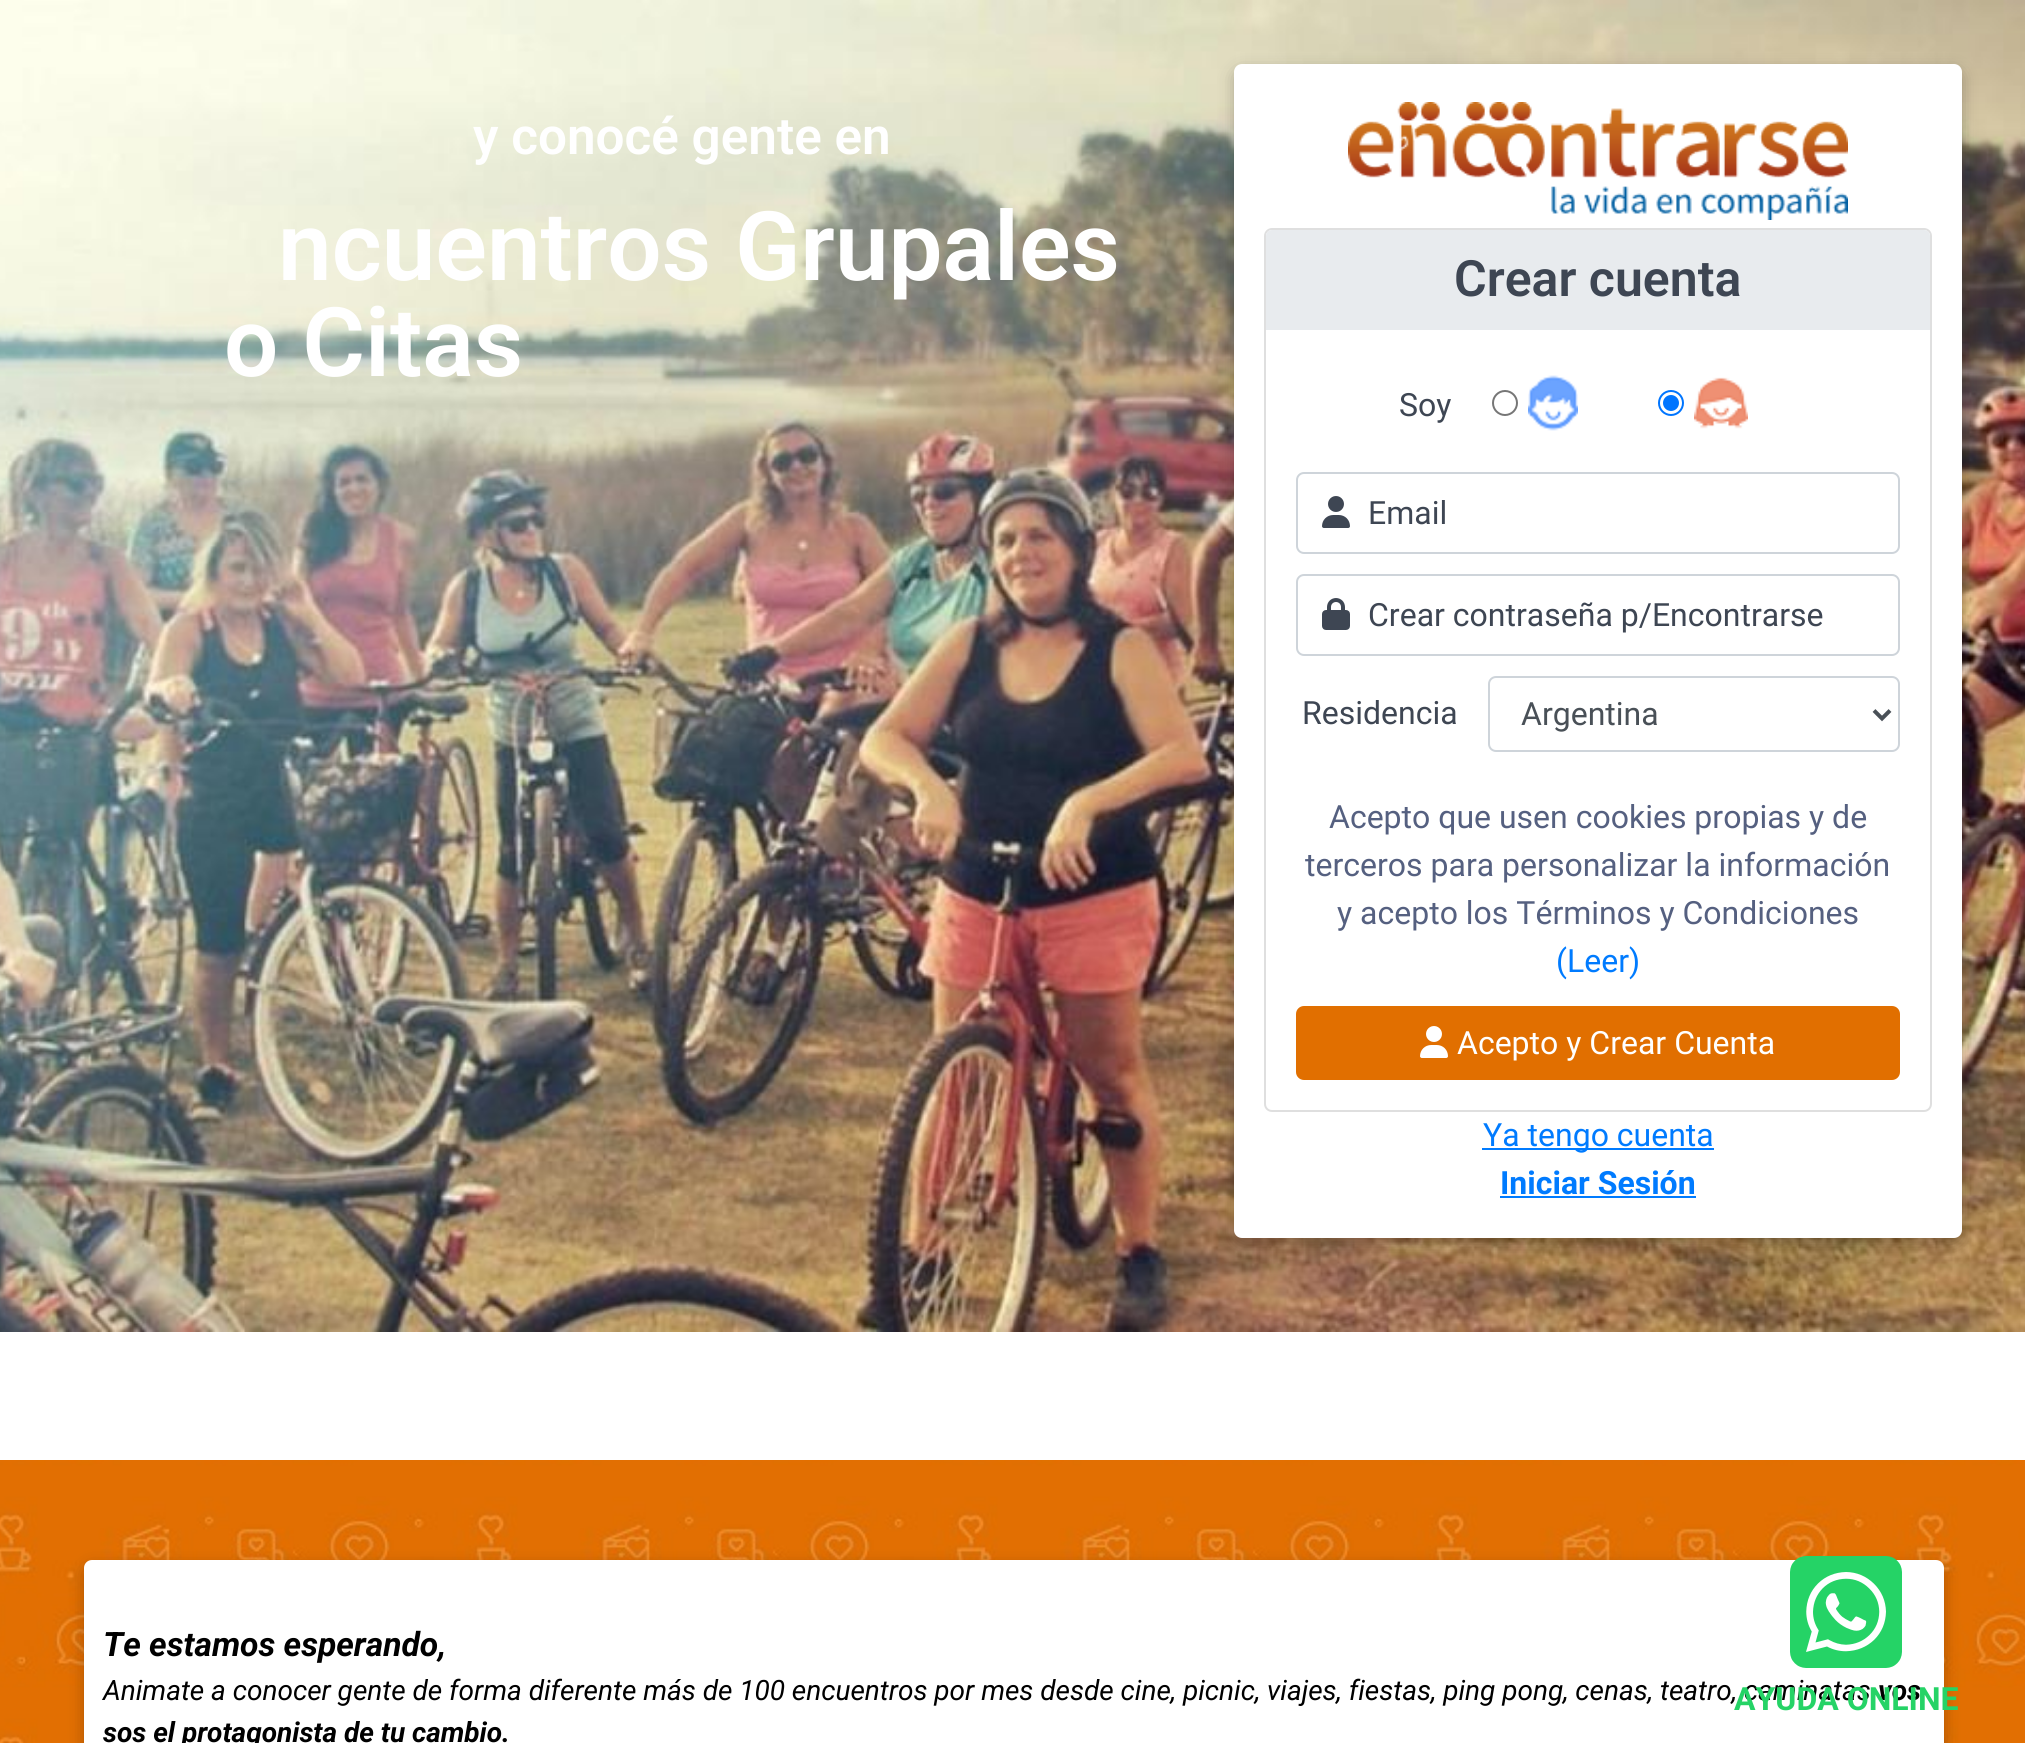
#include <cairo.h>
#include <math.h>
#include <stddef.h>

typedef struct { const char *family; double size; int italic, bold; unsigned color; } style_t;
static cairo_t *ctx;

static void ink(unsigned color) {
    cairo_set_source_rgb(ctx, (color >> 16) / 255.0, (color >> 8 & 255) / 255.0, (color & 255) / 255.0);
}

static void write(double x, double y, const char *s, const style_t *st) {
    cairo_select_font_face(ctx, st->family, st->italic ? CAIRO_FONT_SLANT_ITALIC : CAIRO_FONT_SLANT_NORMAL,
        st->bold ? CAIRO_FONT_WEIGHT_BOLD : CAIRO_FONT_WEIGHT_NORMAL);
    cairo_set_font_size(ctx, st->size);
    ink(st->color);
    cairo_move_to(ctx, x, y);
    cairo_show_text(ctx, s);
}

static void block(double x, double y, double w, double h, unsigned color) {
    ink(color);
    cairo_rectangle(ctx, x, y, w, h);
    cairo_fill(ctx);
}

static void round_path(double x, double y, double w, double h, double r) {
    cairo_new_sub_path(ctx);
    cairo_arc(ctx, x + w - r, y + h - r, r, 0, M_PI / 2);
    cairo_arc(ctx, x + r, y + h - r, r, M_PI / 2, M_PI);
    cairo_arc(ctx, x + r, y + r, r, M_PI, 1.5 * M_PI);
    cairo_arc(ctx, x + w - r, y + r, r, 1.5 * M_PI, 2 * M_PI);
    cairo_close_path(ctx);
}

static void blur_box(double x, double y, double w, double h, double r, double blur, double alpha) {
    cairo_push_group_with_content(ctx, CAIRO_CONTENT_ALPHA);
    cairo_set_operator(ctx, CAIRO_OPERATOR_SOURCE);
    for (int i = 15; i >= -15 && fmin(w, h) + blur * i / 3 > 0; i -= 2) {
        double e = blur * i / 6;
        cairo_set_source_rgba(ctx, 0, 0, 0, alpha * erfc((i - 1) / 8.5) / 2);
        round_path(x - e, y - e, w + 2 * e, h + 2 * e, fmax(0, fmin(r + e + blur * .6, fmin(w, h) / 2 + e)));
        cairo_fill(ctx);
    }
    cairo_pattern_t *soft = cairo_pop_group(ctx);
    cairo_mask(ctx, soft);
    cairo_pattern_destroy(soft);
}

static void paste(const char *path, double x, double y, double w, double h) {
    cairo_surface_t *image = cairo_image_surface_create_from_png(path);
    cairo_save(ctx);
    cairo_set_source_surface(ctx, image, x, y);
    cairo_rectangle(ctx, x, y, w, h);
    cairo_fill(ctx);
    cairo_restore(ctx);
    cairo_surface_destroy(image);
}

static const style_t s1 = {"Roboto SemiBold", 51.25, 0, 0, 0xffffff};
static const style_t s2 = {"Roboto SemiBold", 96, 0, 0, 0xffffff};
static const style_t s3 = {"Roboto SemiBold", 50, 0, 0, 0x3e4653};
static const style_t s4 = {"Roboto", 32, 0, 0, 0x3e4653};
static const style_t s5 = {"Roboto", 32, 0, 0, 0x495057};
static const style_t s6 = {"Roboto", 32, 0, 0, 0x556080};
static const style_t s7 = {"Roboto", 32, 0, 0, 0x007bff};
static const style_t s8 = {"Roboto", 32, 0, 0, 0xffffff};
static const style_t s9 = {"Roboto", 32, 0, 1, 0x007bff};
static const style_t s10 = {"Roboto", 33.6, 1, 1, 0x000000};
static const style_t s11 = {"Roboto", 28, 1, 0, 0x000000};
static const style_t s12 = {"Roboto", 28, 1, 1, 0x000000};
static const style_t s13 = {"Roboto", 32, 0, 1, 0x25d366};

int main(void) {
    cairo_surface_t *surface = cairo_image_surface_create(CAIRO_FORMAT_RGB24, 2025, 1743);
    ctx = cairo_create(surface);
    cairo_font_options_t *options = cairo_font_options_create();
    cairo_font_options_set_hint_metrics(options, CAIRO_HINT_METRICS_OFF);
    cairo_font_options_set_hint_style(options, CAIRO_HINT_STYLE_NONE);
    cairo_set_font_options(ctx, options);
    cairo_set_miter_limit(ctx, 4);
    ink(0xffffff);
    cairo_paint(ctx);
    paste("pic1.png", 0, 0, 2025, 1332);
    write(473, 154, "y conocé gente en", &s1);
    write(278, 280, "ncuentros Grupales", &s2);
    write(224, 376, "o Citas", &s2);
    ink(0x000000);
    blur_box(1234, 70, 728, 1174, 8, 8, 0.25);
    ink(0xffffff);
    round_path(1234, 64, 728, 1174, 8);
    cairo_fill(ctx);
    paste("pic2.png", 1348, 102, 500, 118);
    round_path(1265, 229, 666, 882, 7);
    ink(0xdfdfdf);
    cairo_stroke(ctx);
    ink(0xe8ebee);
    cairo_new_path(ctx);
    cairo_move_to(ctx, 1272, 230);
    cairo_line_to(ctx, 1924, 230);
    cairo_curve_to(ctx, 1927.5, 230, 1930, 232.5, 1930, 236);
    cairo_line_to(ctx, 1930, 330);
    cairo_line_to(ctx, 1266, 330);
    cairo_line_to(ctx, 1266, 236);
    cairo_curve_to(ctx, 1266, 232.5, 1268.5, 230, 1272, 230);
    cairo_close_path(ctx);
    cairo_fill(ctx);
    write(1454, 296, "Crear cuenta", &s3);
    write(1399, 416, "Soy", &s4);
    cairo_new_path(ctx);
    cairo_arc(ctx, 1505, 403, 12, 0, 2 * M_PI);
    ink(0x767676);
    cairo_stroke(ctx);
    paste("pic3.png", 1528, 375, 50, 56);
    cairo_arc(ctx, 1671, 403, 12, 0, 2 * M_PI);
    ink(0x0075ff);
    cairo_stroke(ctx);
    cairo_arc(ctx, 1671, 403, 8, 0, 2 * M_PI);
    cairo_fill(ctx);
    paste("pic4.png", 1694, 377, 54, 52);
    round_path(1297, 473, 602, 80, 7);
    ink(0xced4da);
    cairo_stroke(ctx);
    paste("pic5.png", 1322, 496, 28, 32);
    write(1368, 524, "Email", &s4);
    round_path(1297, 575, 602, 80, 7);
    ink(0xced4da);
    cairo_stroke(ctx);
    paste("pic6.png", 1322, 598, 28, 32);
    write(1368, 626, "Crear contraseña p/Encontrarse", &s4);
    write(1302, 724, "Residencia", &s4);
    round_path(1489, 677, 410, 74, 7);
    ink(0xced4da);
    cairo_stroke(ctx);
    cairo_new_path(ctx);
    cairo_move_to(ctx, 1874, 710.5);
    cairo_line_to(ctx, 1882, 718.5);
    cairo_line_to(ctx, 1890, 710.5);
    ink(0x495057);
    cairo_set_line_width(ctx, 4);
    cairo_stroke(ctx);
    write(1521, 725, "Argentina", &s5);
    write(1329, 828, "Acepto que usen cookies propias y de", &s6);
    write(1305, 876, "terceros para personalizar la información", &s6);
    write(1337, 924, "y acepto los Términos y Condiciones", &s6);
    write(1556, 972, "(Leer)", &s7);
    ink(0xe16f00);
    round_path(1296, 1006, 604, 74, 8);
    cairo_fill(ctx);
    paste("pic7.png", 1420, 1026, 28, 32);
    write(1457, 1054, "Acepto y Crear Cuenta", &s8);
    block(1482, 1148, 232, 2, 0x007bff);
    write(1483, 1146, "Ya tengo cuenta", &s7);
    write(1500, 1194, "Iniciar Sesión", &s9);
    block(1500, 1196, 196, 2, 0x007bff);
    paste("pic8.png", 0, 1460, 2025, 283);
    ink(0x000000);
    blur_box(84, 1566, 1860, 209, 8, 8, 0.25);
    ink(0xffffff);
    round_path(84, 1560, 1860, 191, 8);
    cairo_fill(ctx);
    write(103, 1656, "Te estamos esperando,", &s10);
    write(103, 1700, "Animate a conocer gente de forma diferente más de 100 encuentros por mes desde cine, picnic, viajes, fiestas, ping pong, cenas, teatro, caminatas", &s11);
    write(1878, 1700, "vos", &s12);
    write(103, 1742, "sos el protagonista de tu cambio.", &s12);
    paste("pic9.png", 1790, 1556, 112, 112);
    write(1734, 1710, "AYUDA ONLINE", &s13);
    cairo_surface_write_to_png(surface, "screenshot.png");
    cairo_font_options_destroy(options);
    cairo_destroy(ctx);
    cairo_surface_destroy(surface);
    return 0;
}
